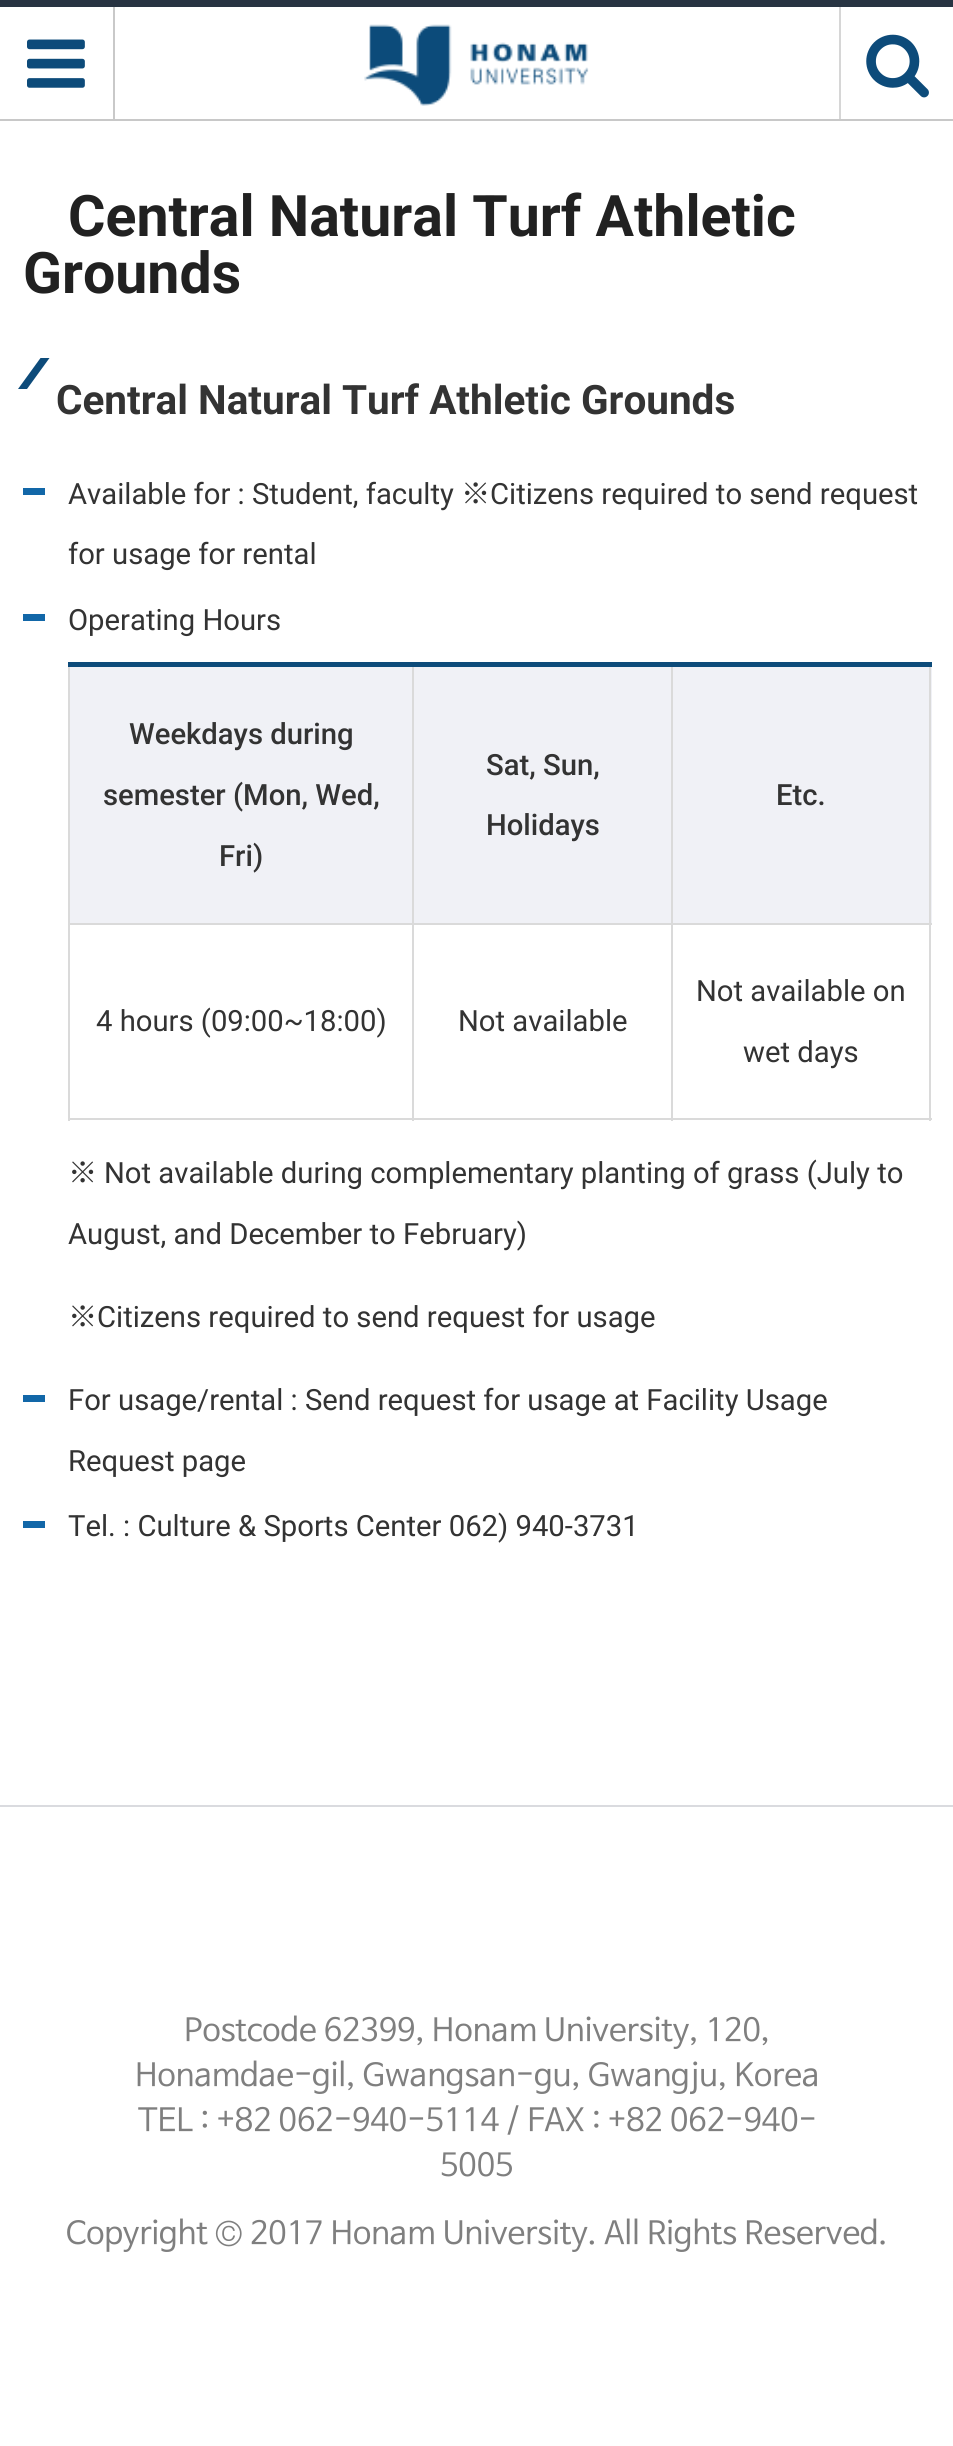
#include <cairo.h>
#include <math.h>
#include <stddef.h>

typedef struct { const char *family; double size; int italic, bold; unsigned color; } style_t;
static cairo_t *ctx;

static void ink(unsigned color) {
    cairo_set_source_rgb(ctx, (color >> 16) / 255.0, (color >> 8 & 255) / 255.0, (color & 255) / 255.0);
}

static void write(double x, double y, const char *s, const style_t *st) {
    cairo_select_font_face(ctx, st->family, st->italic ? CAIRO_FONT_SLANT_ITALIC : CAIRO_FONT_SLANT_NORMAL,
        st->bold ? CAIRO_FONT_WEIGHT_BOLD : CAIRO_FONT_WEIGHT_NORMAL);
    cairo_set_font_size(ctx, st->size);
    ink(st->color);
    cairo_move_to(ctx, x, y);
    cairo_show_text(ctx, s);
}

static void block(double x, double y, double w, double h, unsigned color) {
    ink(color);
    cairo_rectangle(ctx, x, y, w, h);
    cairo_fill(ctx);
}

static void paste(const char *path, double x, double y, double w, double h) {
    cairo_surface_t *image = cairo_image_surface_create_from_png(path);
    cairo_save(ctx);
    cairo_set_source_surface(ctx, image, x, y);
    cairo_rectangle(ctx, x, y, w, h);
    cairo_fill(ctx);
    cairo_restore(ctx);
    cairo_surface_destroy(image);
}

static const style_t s1 = {"Roboto", 57.25, 0, 1, 0x212121};
static const style_t s2 = {"Roboto", 40.5, 0, 1, 0x333333};
static const style_t s3 = {"Roboto", 29.25, 0, 0, 0x333333};
static const style_t s4 = {"Noto Sans TC", 29.25, 0, 0, 0x333333};
static const style_t s5 = {"Roboto Medium", 29.25, 0, 0, 0x333333};
static const style_t s6 = {"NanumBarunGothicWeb", 31.5, 0, 0, 0x7f7f7f};

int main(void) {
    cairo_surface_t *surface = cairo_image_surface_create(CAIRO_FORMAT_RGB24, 953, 2446);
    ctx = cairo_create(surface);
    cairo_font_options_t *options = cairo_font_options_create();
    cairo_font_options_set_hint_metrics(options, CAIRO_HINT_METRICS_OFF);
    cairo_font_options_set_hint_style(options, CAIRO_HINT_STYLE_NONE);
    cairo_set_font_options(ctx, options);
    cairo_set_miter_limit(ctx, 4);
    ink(0xffffff);
    cairo_paint(ctx);
    block(0, 119, 953, 2, 0xc8c8c8);
    block(0, 0, 953, 7, 0x283442);
    block(113, 7, 2, 112, 0xc9c9c9);
    paste("pic1.png", 27, 39, 58, 49);
    paste("pic2.png", 364, 24, 225, 82);
    block(839, 7, 2, 112, 0xd6d6d6);
    paste("pic3.png", 866, 34, 63, 64);
    write(68, 236, "Central Natural Turf Athletic", &s1);
    write(23, 293, "Grounds", &s1);
    ink(0x0d4b7a);
    cairo_new_path(ctx);
    cairo_move_to(ctx, 40.5, 358);
    cairo_line_to(ctx, 49.5, 358);
    cairo_line_to(ctx, 27, 389);
    cairo_line_to(ctx, 18, 389);
    cairo_close_path(ctx);
    cairo_fill(ctx);
    write(56, 414, "Central Natural Turf Athletic Grounds", &s2);
    block(23, 488, 22, 7, 0x1267a8);
    write(68, 504, "Available for : Student, faculty", &s3);
    write(461, 504, "※", &s4);
    write(490, 504, "Citizens required to send request", &s3);
    write(68, 564, "for usage for rental", &s3);
    block(23, 614, 22, 7, 0x1267a8);
    write(68, 630, "Operating Hours", &s3);
    block(68, 662, 2, 459, 0xdadada);
    block(673, 667, 259, 256, 0xf0f1f6);
    block(929, 664, 2, 457, 0xdadada);
    block(671, 1118, 261, 2, 0xdadada);
    block(671, 923, 2, 198, 0xdadada);
    block(671, 923, 261, 2, 0xdadada);
    block(671, 664, 2, 261, 0xdadada);
    block(412, 1118, 261, 2, 0xdadada);
    block(412, 923, 2, 198, 0xdadada);
    block(412, 923, 261, 2, 0xdadada);
    block(412, 664, 2, 261, 0xdadada);
    block(68, 662, 864, 5, 0x0d4b7a);
    block(70, 667, 342, 256, 0xf0f1f6);
    block(68, 923, 346, 2, 0xdadada);
    write(129, 744, "Weekdays during", &s5);
    write(103, 805, "semester (Mon, Wed,", &s5);
    write(219, 866, "Fri)", &s5);
    block(414, 667, 257, 256, 0xf0f1f6);
    write(486, 775, "Sat, Sun,", &s5);
    write(486, 835, "Holidays", &s5);
    write(776, 805, "Etc.", &s5);
    block(68, 1118, 346, 2, 0xdadada);
    write(96, 1031, "4 hours (09:00~18:00)", &s3);
    write(458, 1031, "Not available", &s3);
    write(696, 1001, "Not available on", &s3);
    write(743, 1062, "wet days", &s3);
    write(68, 1183, "※", &s4);
    write(104, 1183, "Not available during complementary planting of grass (July to", &s3);
    write(68, 1244, "August, and December to February)", &s3);
    write(68, 1327, "※", &s4);
    write(97, 1327, "Citizens required to send request for usage", &s3);
    block(23, 1395, 22, 7, 0x1267a8);
    write(68, 1410, "For usage/rental : Send request for usage at Facility Usage", &s3);
    write(68, 1471, "Request page", &s3);
    block(23, 1521, 22, 7, 0x1267a8);
    write(68, 1536, "Tel. : Culture & Sports Center 062) 940-3731", &s3);
    block(0, 1805, 953, 2, 0xdadbdf);
    write(184, 2040, "Postcode 62399, Honam University, 120,", &s6);
    write(135, 2085, "Honamdae-gil, Gwangsan-gu, Gwangju, Korea", &s6);
    write(138, 2130, "TEL : +82 062-940-5114 / FAX : +82 062-940-", &s6);
    write(440, 2175, "5005", &s6);
    write(66, 2243, "Copyright © 2017 Honam University. All Rights Reserved.", &s6);
    cairo_surface_write_to_png(surface, "screenshot.png");
    cairo_font_options_destroy(options);
    cairo_destroy(ctx);
    cairo_surface_destroy(surface);
    return 0;
}
